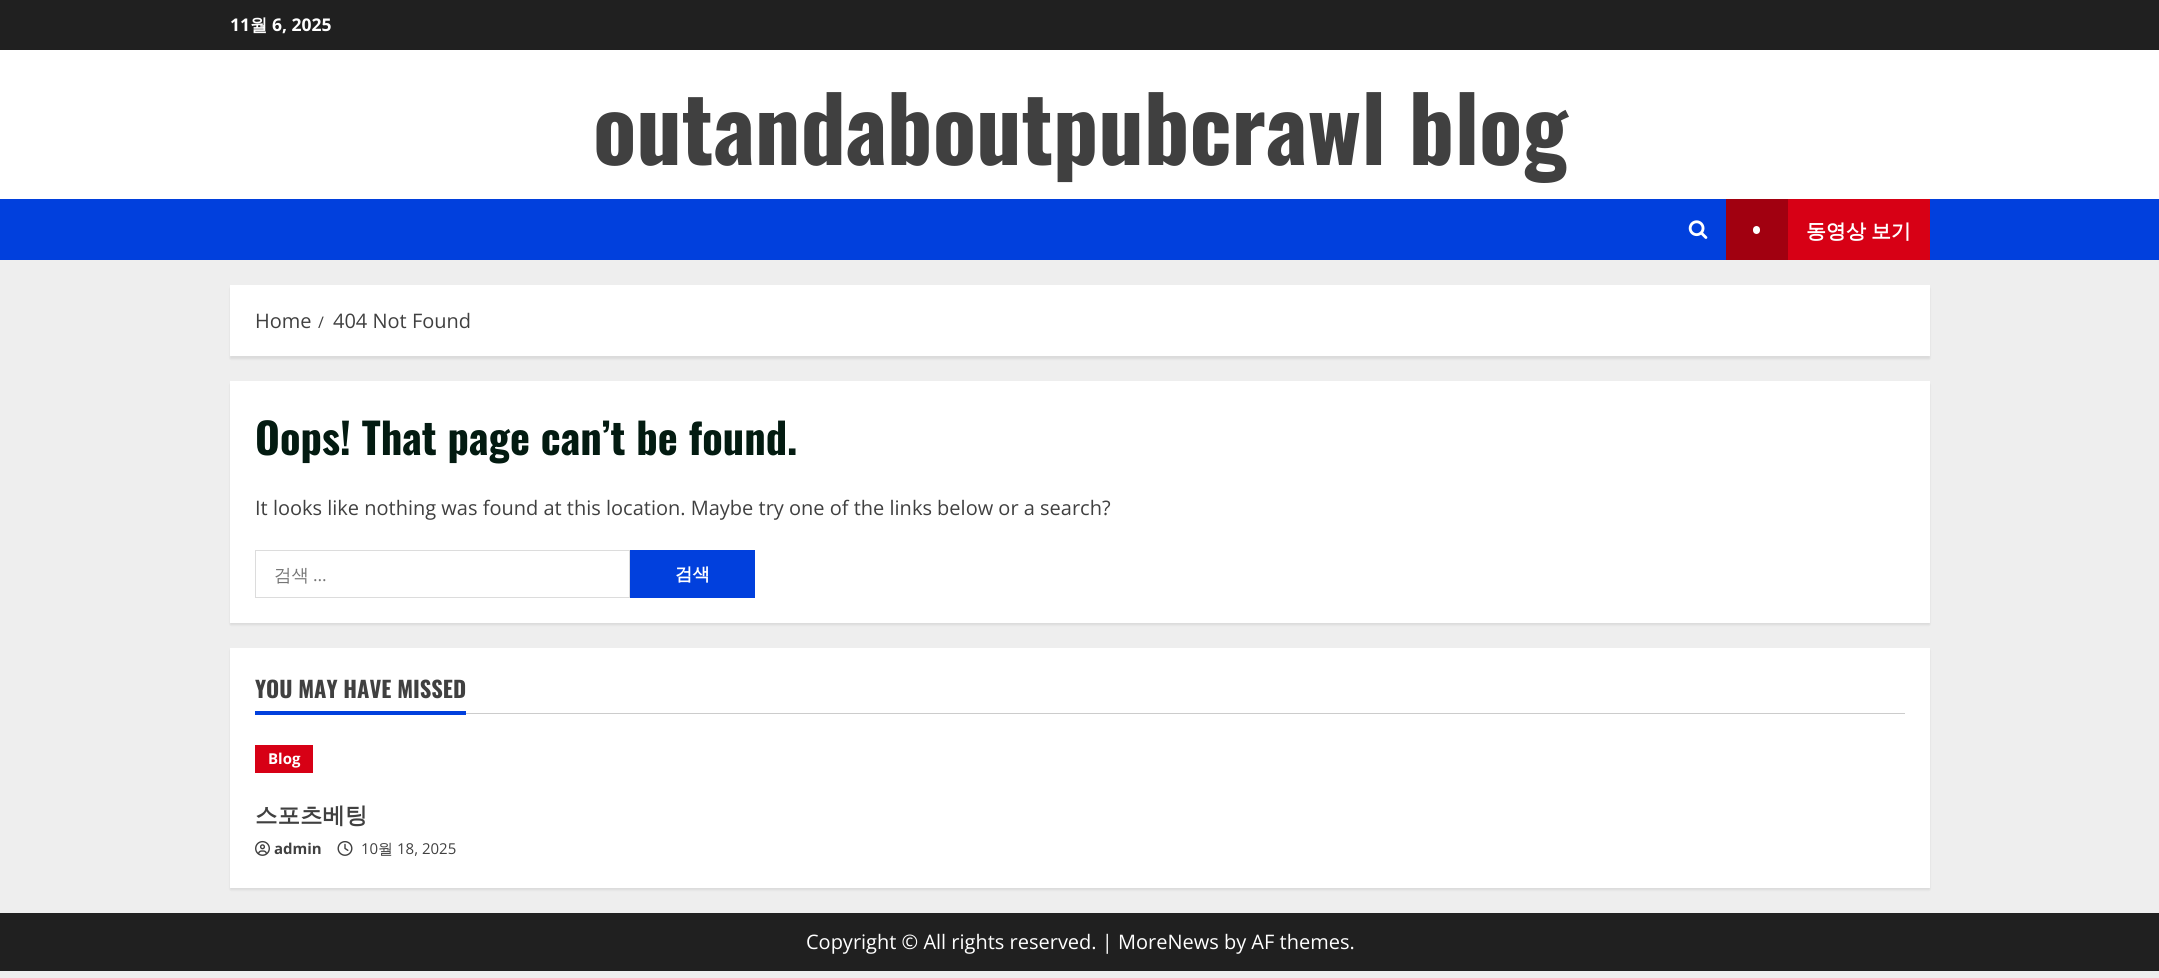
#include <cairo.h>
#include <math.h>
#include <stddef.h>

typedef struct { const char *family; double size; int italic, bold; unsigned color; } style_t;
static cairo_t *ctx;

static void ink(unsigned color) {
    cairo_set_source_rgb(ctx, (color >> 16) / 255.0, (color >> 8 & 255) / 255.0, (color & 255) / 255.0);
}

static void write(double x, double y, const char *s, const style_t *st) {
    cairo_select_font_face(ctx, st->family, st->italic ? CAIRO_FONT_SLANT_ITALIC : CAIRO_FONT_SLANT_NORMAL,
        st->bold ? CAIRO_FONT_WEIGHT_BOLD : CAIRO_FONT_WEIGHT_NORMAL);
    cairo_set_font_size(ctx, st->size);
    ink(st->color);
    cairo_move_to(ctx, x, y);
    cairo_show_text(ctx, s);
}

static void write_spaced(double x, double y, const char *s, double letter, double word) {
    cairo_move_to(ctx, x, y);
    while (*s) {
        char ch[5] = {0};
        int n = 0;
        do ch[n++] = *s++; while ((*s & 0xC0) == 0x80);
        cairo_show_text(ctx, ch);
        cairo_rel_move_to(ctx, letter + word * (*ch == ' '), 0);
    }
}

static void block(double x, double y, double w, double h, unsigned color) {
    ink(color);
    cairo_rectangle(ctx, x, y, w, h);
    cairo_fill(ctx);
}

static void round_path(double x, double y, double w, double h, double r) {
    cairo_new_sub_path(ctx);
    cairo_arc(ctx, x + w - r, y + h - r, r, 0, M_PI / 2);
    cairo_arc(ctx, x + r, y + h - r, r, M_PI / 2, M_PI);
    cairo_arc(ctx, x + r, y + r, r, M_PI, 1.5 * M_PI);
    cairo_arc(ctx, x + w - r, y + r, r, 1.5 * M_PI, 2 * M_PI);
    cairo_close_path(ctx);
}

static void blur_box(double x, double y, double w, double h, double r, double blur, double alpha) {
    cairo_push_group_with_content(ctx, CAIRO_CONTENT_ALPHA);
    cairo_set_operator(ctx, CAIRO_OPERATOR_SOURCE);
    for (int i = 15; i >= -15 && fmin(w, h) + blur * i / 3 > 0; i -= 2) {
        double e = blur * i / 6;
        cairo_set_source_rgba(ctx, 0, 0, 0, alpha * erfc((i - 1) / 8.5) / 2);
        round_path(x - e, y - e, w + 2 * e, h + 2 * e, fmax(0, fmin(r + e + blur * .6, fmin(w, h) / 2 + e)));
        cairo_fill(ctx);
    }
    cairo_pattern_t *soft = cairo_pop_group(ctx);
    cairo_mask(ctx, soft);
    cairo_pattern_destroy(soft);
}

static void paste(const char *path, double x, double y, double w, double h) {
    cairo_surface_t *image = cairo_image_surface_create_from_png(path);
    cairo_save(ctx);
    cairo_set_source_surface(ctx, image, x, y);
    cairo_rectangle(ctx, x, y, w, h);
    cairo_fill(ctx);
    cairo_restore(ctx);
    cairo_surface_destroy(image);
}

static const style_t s1 = {"Open Sans", 17.5, 0, 1, 0xffffff};
static const style_t s2 = {"WenQuanYi Zen Hei", 17.5, 0, 1, 0xffffff};
static const style_t s3 = {"Oswald", 90, 0, 1, 0x404040};
static const style_t s4 = {"Open Sans", 20, 0, 0, 0x404040};
static const style_t s5 = {"Open Sans", 16, 0, 0, 0x404040};
static const style_t s6 = {"Oswald", 42.5, 0, 1, 0x031b11};
static const style_t s7 = {"WenQuanYi Zen Hei Medium", 17.5, 0, 0, 0x757575};
static const style_t s8 = {"Open Sans", 17.5, 0, 0, 0x757575};
static const style_t s9 = {"Oswald", 22.5, 0, 1, 0x404040};
static const style_t s10 = {"Open Sans", 15, 0, 1, 0xffffff};
static const style_t s11 = {"WenQuanYi Zen Hei", 22.5, 0, 1, 0x404040};
static const style_t s12 = {"Open Sans", 15, 0, 1, 0x404040};
static const style_t s13 = {"Open Sans", 15, 0, 0, 0x404040};
static const style_t s14 = {"WenQuanYi Zen Hei Medium", 15, 0, 0, 0x404040};
static const style_t s15 = {"Open Sans", 20, 0, 0, 0xffffff};

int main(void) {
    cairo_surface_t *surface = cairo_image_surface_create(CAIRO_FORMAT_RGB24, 2159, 978);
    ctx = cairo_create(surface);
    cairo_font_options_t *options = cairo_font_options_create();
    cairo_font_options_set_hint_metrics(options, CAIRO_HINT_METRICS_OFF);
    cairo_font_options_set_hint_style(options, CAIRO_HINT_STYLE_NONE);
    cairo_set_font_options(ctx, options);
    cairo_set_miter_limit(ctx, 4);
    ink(0xeeeeee);
    cairo_paint(ctx);
    block(0, 0, 2159, 50, 0x202020);
    write(230, 31, "11", &s1);
    write(250, 31, "월", &s2);
    write(272, 31, "6, 2025", &s1);
    block(0, 50, 2159, 149, 0xffffff);
    write(593, 165, "outandaboutpubcrawl blog", &s3);
    block(0, 199, 2159, 61, 0x0140dd);
    paste("pic1.png", 1688, 220, 20, 19);
    block(1788, 199, 142, 61, 0xd70015);
    block(1726, 199, 62, 61, 0xa10010);
    ink(0xffffff);
    round_path(1753, 226, 7, 8, 3.5);
    cairo_fill(ctx);
    cairo_select_font_face(ctx, "WenQuanYi Zen Hei", CAIRO_FONT_SLANT_NORMAL, CAIRO_FONT_WEIGHT_BOLD);
    cairo_set_font_size(ctx, 20);
    write_spaced(1806, 238, "동영상 보기", 0, -1);
    ink(0x000000);
    blur_box(230, 288, 1700, 71, 0, 1, 0.08);
    block(230, 285, 1700, 71, 0xffffff);
    write(255, 328, "Home", &s4);
    write(318, 328, "/", &s5);
    write(333, 328, "404 Not Found", &s4);
    ink(0x000000);
    blur_box(230, 384, 1700, 241, 0, 1, 0.08);
    block(230, 381, 1700, 242, 0xffffff);
    write(255, 455, "Oops! That page can’t be found.", &s6);
    write(255, 515, "It looks like nothing was found at this location. Maybe try one of the links below or a search?", &s4);
    cairo_rectangle(ctx, 255.5, 550.5, 374, 47);
    ink(0xdcdcdc);
    cairo_set_line_width(ctx, 1);
    cairo_stroke(ctx);
    write(274, 581, "검색", &s7);
    write(313, 581, "…", &s8);
    block(630, 550, 125, 48, 0x0140dd);
    write(675, 580, "검색", &s2);
    ink(0x000000);
    blur_box(230, 650, 1700, 240, 0, 1, 0.08);
    block(230, 648, 1700, 240, 0xffffff);
    block(466, 713, 1439, 1, 0xcccccc);
    write(255, 698, "YOU MAY HAVE MISSED", &s9);
    block(255, 711, 211, 4, 0x0140dd);
    block(255, 745, 58, 28, 0xd70015);
    write(268, 764, "Blog", &s10);
    write(255, 823, "스포츠베팅", &s11);
    paste("pic2.png", 255, 840, 15, 16);
    write(274, 854, "admin", &s12);
    paste("pic3.png", 337, 841, 16, 15);
    write(361, 854, "10", &s13);
    write(378, 854, "월", &s14);
    write(397, 854, "18, 2025", &s13);
    block(0, 913, 2159, 58, 0x202020);
    write(806, 949, "Copyright © All rights reserved. | MoreNews by AF themes.", &s15);
    cairo_surface_write_to_png(surface, "screenshot.png");
    cairo_font_options_destroy(options);
    cairo_destroy(ctx);
    cairo_surface_destroy(surface);
    return 0;
}
